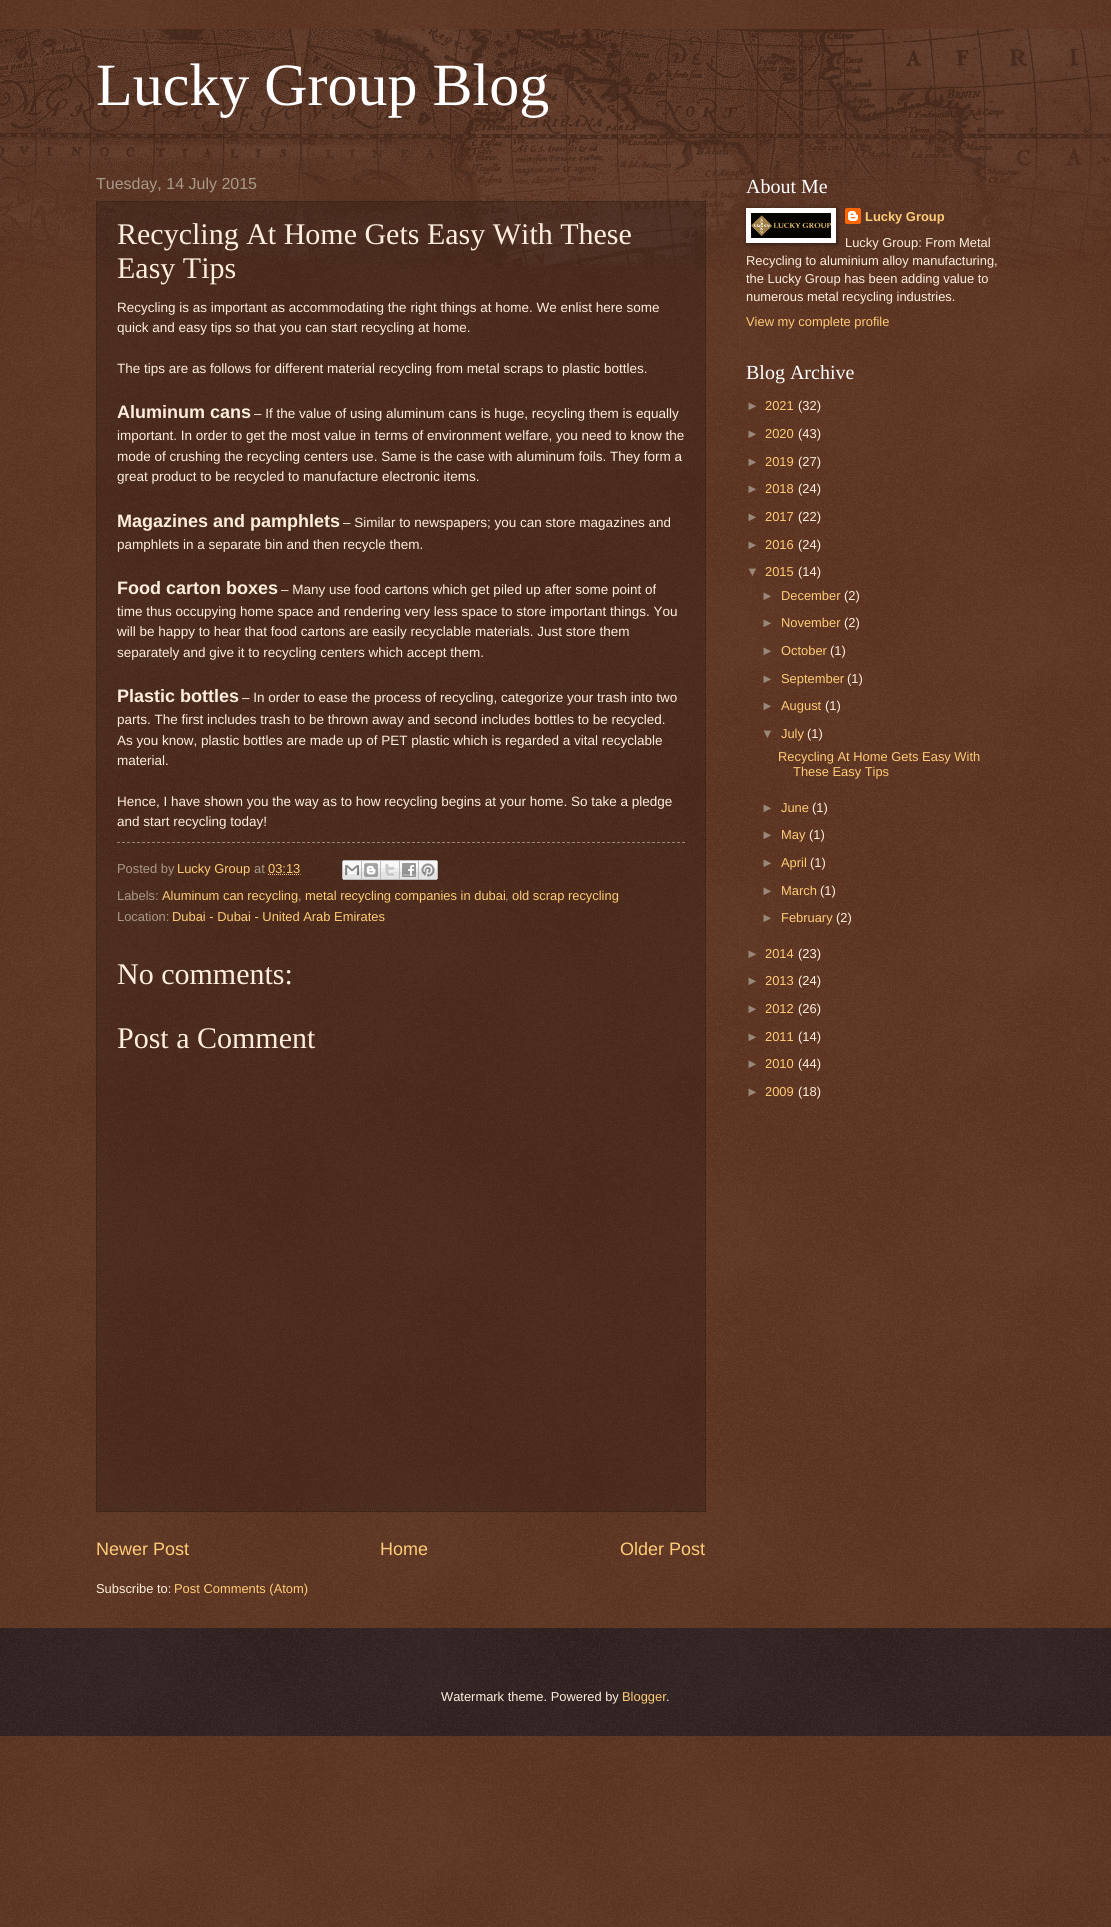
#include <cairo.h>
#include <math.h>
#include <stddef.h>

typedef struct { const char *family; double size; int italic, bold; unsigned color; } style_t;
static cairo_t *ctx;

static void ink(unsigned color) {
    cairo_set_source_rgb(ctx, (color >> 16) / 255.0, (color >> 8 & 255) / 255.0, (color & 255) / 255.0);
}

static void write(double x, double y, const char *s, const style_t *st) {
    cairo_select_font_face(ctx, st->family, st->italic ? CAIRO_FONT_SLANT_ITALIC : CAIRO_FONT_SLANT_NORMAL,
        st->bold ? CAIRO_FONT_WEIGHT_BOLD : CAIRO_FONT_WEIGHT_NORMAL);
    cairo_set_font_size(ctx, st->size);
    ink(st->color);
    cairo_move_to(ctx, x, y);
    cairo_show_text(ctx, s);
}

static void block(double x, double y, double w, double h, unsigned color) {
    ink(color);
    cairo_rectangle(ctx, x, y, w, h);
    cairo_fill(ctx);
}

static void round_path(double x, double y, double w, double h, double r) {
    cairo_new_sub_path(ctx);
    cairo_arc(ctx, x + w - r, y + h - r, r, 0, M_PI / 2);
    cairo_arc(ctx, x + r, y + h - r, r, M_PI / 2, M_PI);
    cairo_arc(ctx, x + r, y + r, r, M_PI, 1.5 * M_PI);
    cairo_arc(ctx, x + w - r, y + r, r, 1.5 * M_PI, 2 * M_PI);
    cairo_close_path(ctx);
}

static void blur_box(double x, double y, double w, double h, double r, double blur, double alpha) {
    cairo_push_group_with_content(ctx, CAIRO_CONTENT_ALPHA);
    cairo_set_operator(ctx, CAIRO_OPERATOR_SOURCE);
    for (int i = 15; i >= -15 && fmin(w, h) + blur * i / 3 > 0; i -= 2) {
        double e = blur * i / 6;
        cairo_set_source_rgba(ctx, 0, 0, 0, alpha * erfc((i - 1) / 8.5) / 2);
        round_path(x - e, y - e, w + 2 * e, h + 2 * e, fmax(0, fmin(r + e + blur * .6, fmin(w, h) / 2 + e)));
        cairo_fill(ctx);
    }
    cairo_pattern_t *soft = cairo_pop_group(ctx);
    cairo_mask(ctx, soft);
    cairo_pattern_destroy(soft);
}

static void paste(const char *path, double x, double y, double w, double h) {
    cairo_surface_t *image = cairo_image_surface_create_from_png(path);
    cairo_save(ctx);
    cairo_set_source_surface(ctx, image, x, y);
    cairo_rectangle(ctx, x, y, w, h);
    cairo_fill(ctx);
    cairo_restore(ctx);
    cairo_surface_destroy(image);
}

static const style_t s1 = {"Liberation Serif", 60, 0, 0, 0xffffff};
static const style_t s2 = {"Liberation Sans", 16, 0, 0, 0xaa9988};
static const style_t s3 = {"Liberation Serif", 30, 0, 0, 0xffeedd};
static const style_t s4 = {"Liberation Sans", 13.5, 0, 0, 0xffeedd};
static const style_t s5 = {"Liberation Sans", 18, 0, 1, 0xffeedd};
static const style_t s6 = {"Liberation Sans", 12.9, 0, 0, 0xaa9988};
static const style_t s7 = {"Liberation Sans", 12.9, 0, 0, 0xffcc77};
static const style_t s8 = {"Liberation Sans", 18, 0, 0, 0xffcc77};
static const style_t s9 = {"Liberation Sans", 12.9, 0, 0, 0xffeedd};
static const style_t s10 = {"Liberation Serif", 20, 0, 0, 0xffffff};
static const style_t s11 = {"Liberation Sans", 12.9, 0, 1, 0xffcc77};
static const style_t s12 = {"Liberation Sans", 12.9, 0, 0, 0x998877};

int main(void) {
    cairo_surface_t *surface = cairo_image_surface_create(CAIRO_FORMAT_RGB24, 1111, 1927);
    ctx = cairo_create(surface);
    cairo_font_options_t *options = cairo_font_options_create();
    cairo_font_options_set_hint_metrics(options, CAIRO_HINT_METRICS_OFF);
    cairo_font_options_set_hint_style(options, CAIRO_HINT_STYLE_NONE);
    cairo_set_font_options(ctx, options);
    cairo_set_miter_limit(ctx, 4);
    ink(0x441500);
    cairo_paint(ctx);
    paste("pic1.png", 0, 0, 1111, 1927);
    paste("pic2.png", 0, 29, 1111, 240);
    write(96, 105, "Lucky Group Blog", &s1);
    write(96, 189, "Tuesday, 14 July 2015", &s2);
    cairo_set_source_rgba(ctx, 0, 0, 0, 0.2);
    cairo_rectangle(ctx, 96, 201, 610, 1311);
    cairo_fill(ctx);
    cairo_new_path(ctx);
    cairo_move_to(ctx, 96, 201.5);
    cairo_line_to(ctx, 706, 201.5);
    ink(0x332211);
    cairo_set_line_width(ctx, 1);
    cairo_set_dash(ctx, (double[]){1, 1}, 2, 0);
    cairo_stroke(ctx);
    cairo_new_path(ctx);
    cairo_move_to(ctx, 705.5, 201);
    cairo_line_to(ctx, 705.5, 1512);
    cairo_stroke(ctx);
    cairo_new_path(ctx);
    cairo_move_to(ctx, 96, 1511.5);
    cairo_line_to(ctx, 706, 1511.5);
    cairo_stroke(ctx);
    cairo_new_path(ctx);
    cairo_move_to(ctx, 96.5, 201);
    cairo_line_to(ctx, 96.5, 1512);
    cairo_stroke(ctx);
    write(117, 244, "Recycling At Home Gets Easy With These", &s3);
    write(117, 278, "Easy Tips", &s3);
    write(117, 312, "Recycling is as important as accommodating the right things at home. We enlist here some", &s4);
    write(117, 332, "quick and easy tips so that you can start recycling at home.", &s4);
    write(117, 373, "The tips are as follows for different material recycling from metal scraps to plastic bottles.", &s4);
    write(117, 418, "Aluminum cans", &s5);
    write(254, 418, "– If the value of using aluminum cans is huge, recycling them is equally", &s4);
    write(117, 440, "important. In order to get the most value in terms of environment welfare, you need to know the", &s4);
    write(117, 461, "mode of crushing the recycling centers use. Same is the case with aluminum foils. They form a", &s4);
    write(117, 481, "great product to be recycled to manufacture electronic items.", &s4);
    write(117, 527, "Magazines and pamphlets", &s5);
    write(343, 527, "– Similar to newspapers; you can store magazines and", &s4);
    write(117, 549, "pamphlets in a separate bin and then recycle them.", &s4);
    write(117, 594, "Food carton boxes", &s5);
    write(281, 594, "– Many use food cartons which get piled up after some point of", &s4);
    write(117, 616, "time thus occupying home space and rendering very less space to store important things. You", &s4);
    write(117, 636, "will be happy to hear that food cartons are easily recyclable materials. Just store them", &s4);
    write(117, 657, "separately and give it to recycling centers which accept them.", &s4);
    write(117, 702, "Plastic bottles", &s5);
    write(242, 702, "– In order to ease the process of recycling, categorize your trash into two", &s4);
    write(117, 724, "parts. The first includes trash to be thrown away and second includes bottles to be recycled.", &s4);
    write(117, 745, "As you know, plastic bottles are made up of PET plastic which is regarded a vital recyclable", &s4);
    write(117, 765, "material.", &s4);
    write(117, 806, "Hence, I have shown you the way as to how recycling begins at your home. So take a pledge", &s4);
    write(117, 826, "and start recycling today!", &s4);
    cairo_new_path(ctx);
    cairo_move_to(ctx, 117, 842.5);
    cairo_line_to(ctx, 685, 842.5);
    ink(0x998877);
    cairo_set_dash(ctx, (double[]){3, 2}, 2, 0);
    cairo_stroke(ctx);
    write(117, 873, "Posted by", &s6);
    write(177, 873, "Lucky Group", &s7);
    write(254, 873, "at", &s6);
    write(268, 873, "03:13", &s7);
    cairo_new_path(ctx);
    cairo_move_to(ctx, 268, 874.5);
    cairo_line_to(ctx, 300.5, 874.5);
    cairo_set_dash(ctx, (double[]){1, 1}, 2, 0);
    cairo_stroke(ctx);
    paste("pic3.png", 342, 860, 20, 20);
    paste("pic4.png", 362, 860, 19, 20);
    paste("pic5.png", 381, 860, 19, 20);
    paste("pic6.png", 400, 860, 19, 20);
    paste("pic7.png", 419, 860, 19, 20);
    write(117, 900, "Labels:", &s6);
    write(162, 900, "Aluminum can recycling", &s7);
    write(298, 900, ",", &s6);
    write(305, 900, "metal recycling companies in dubai", &s7);
    write(505, 900, ",", &s6);
    write(512, 900, "old scrap recycling", &s7);
    write(117, 921, "Location:", &s6);
    write(172, 921, "Dubai - Dubai - United Arab Emirates", &s7);
    write(117, 984, "No comments:", &s3);
    write(117, 1048, "Post a Comment", &s3);
    write(96, 1555, "Newer Post", &s8);
    write(380, 1555, "Home", &s8);
    write(620, 1555, "Older Post", &s8);
    write(96, 1593, "Subscribe to:", &s9);
    write(174, 1593, "Post Comments (Atom)", &s7);
    write(746, 193, "About Me", &s10);
    paste("pic9.png", 845, 208, 16, 16);
    ink(0x000000);
    blur_box(747, 209, 90, 35, 0, 2.5, 0.5);
    block(746, 208, 90, 35, 0xffffff);
    paste("pic8.png", 751, 213, 80, 25);
    write(865, 221, "Lucky Group", &s11);
    write(845, 247, "Lucky Group: From Metal", &s9);
    write(746, 265, "Recycling to aluminium alloy manufacturing,", &s9);
    write(746, 283, "the Lucky Group has been adding value to", &s9);
    write(746, 301, "numerous metal recycling industries.", &s9);
    write(746, 326, "View my complete profile", &s7);
    write(746, 379, "Blog Archive", &s10);
    write(746, 410, "►", &s12);
    write(765, 410, "2021", &s7);
    write(798, 410, "(32)", &s9);
    write(746, 438, "►", &s12);
    write(765, 438, "2020", &s7);
    write(798, 438, "(43)", &s9);
    write(746, 466, "►", &s12);
    write(765, 466, "2019", &s7);
    write(798, 466, "(27)", &s9);
    write(746, 493, "►", &s12);
    write(765, 493, "2018", &s7);
    write(798, 493, "(24)", &s9);
    write(746, 521, "►", &s12);
    write(765, 521, "2017", &s7);
    write(798, 521, "(22)", &s9);
    write(746, 549, "►", &s12);
    write(765, 549, "2016", &s7);
    write(798, 549, "(24)", &s9);
    write(746, 576, "▼", &s12);
    write(765, 576, "2015", &s7);
    write(798, 576, "(14)", &s9);
    write(761, 600, "►", &s12);
    write(781, 600, "December", &s7);
    write(844, 600, "(2)", &s9);
    write(761, 627, "►", &s12);
    write(781, 627, "November", &s7);
    write(844, 627, "(2)", &s9);
    write(761, 655, "►", &s12);
    write(781, 655, "October", &s7);
    write(830, 655, "(1)", &s9);
    write(761, 683, "►", &s12);
    write(781, 683, "September", &s7);
    write(847, 683, "(1)", &s9);
    write(761, 710, "►", &s12);
    write(781, 710, "August", &s7);
    write(825, 710, "(1)", &s9);
    write(761, 738, "▼", &s12);
    write(781, 738, "July", &s7);
    write(807, 738, "(1)", &s9);
    write(778, 761, "Recycling At Home Gets Easy With", &s7);
    write(793, 776, "These Easy Tips", &s7);
    write(761, 812, "►", &s12);
    write(781, 812, "June", &s7);
    write(812, 812, "(1)", &s9);
    write(761, 839, "►", &s12);
    write(781, 839, "May", &s7);
    write(809, 839, "(1)", &s9);
    write(761, 867, "►", &s12);
    write(781, 867, "April", &s7);
    write(810, 867, "(1)", &s9);
    write(761, 895, "►", &s12);
    write(781, 895, "March", &s7);
    write(820, 895, "(1)", &s9);
    write(761, 922, "►", &s12);
    write(781, 922, "February", &s7);
    write(836, 922, "(2)", &s9);
    write(746, 958, "►", &s12);
    write(765, 958, "2014", &s7);
    write(798, 958, "(23)", &s9);
    write(746, 985, "►", &s12);
    write(765, 985, "2013", &s7);
    write(798, 985, "(24)", &s9);
    write(746, 1013, "►", &s12);
    write(765, 1013, "2012", &s7);
    write(798, 1013, "(26)", &s9);
    write(746, 1041, "►", &s12);
    write(765, 1041, "2011", &s7);
    write(798, 1041, "(14)", &s9);
    write(746, 1068, "►", &s12);
    write(765, 1068, "2010", &s7);
    write(798, 1068, "(44)", &s9);
    write(746, 1096, "►", &s12);
    write(765, 1096, "2009", &s7);
    write(798, 1096, "(18)", &s9);
    block(0, 1628, 1111, 108, 0x110000);
    paste("pic10.png", 0, 1628, 1111, 108);
    write(441, 1701, "Watermark theme. Powered by", &s9);
    write(622, 1701, "Blogger", &s7);
    write(666, 1701, ".", &s9);
    cairo_surface_write_to_png(surface, "screenshot.png");
    cairo_font_options_destroy(options);
    cairo_destroy(ctx);
    cairo_surface_destroy(surface);
    return 0;
}
